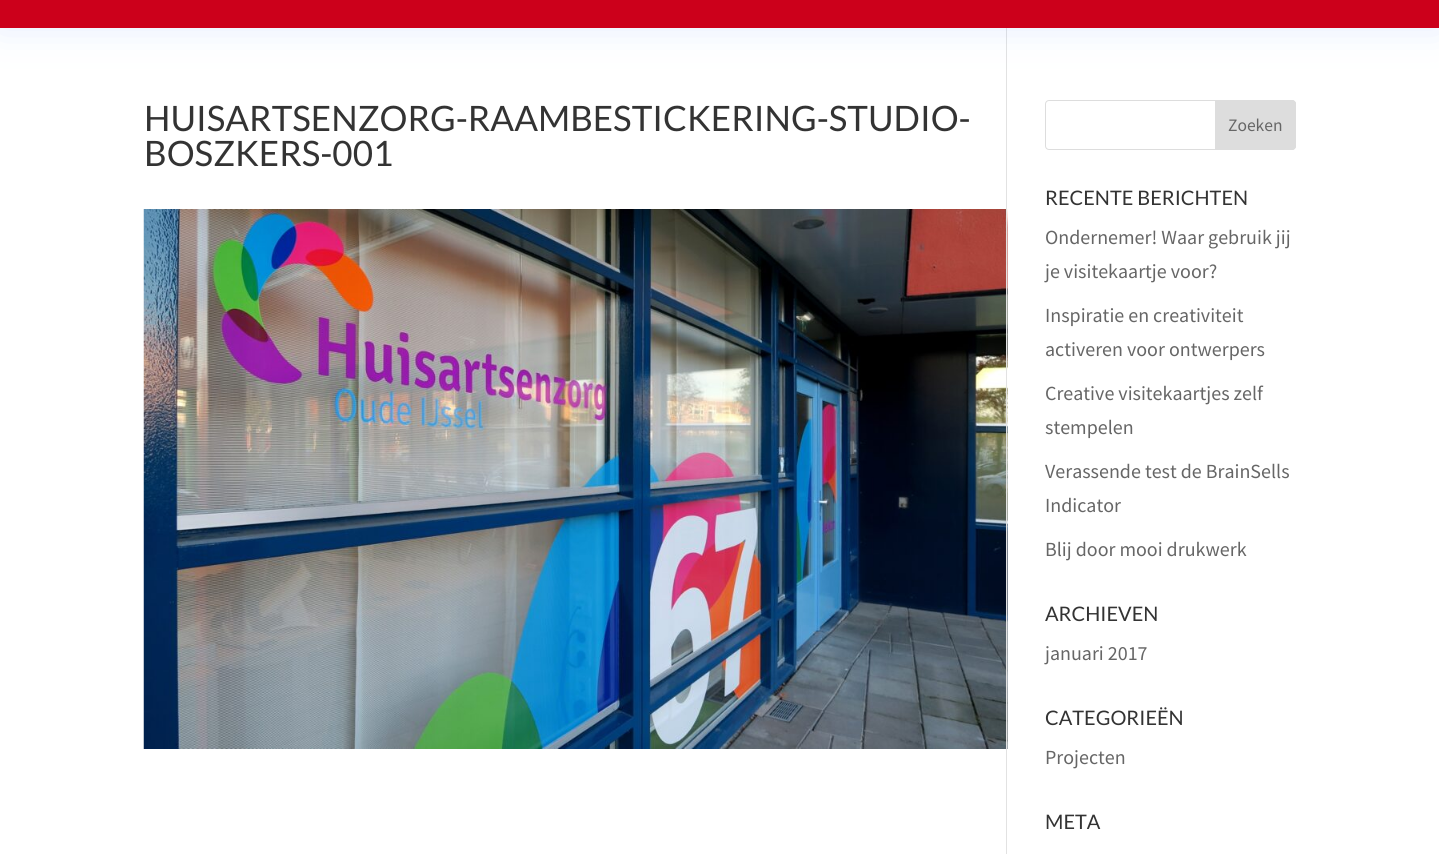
#include <cairo.h>
#include <math.h>
#include <stddef.h>

typedef struct { const char *family; double size; int italic, bold; unsigned color; } style_t;
static cairo_t *ctx;

static void ink(unsigned color) {
    cairo_set_source_rgb(ctx, (color >> 16) / 255.0, (color >> 8 & 255) / 255.0, (color & 255) / 255.0);
}

static void write(double x, double y, const char *s, const style_t *st) {
    cairo_select_font_face(ctx, st->family, st->italic ? CAIRO_FONT_SLANT_ITALIC : CAIRO_FONT_SLANT_NORMAL,
        st->bold ? CAIRO_FONT_WEIGHT_BOLD : CAIRO_FONT_WEIGHT_NORMAL);
    cairo_set_font_size(ctx, st->size);
    ink(st->color);
    cairo_move_to(ctx, x, y);
    cairo_show_text(ctx, s);
}

static void block(double x, double y, double w, double h, unsigned color) {
    ink(color);
    cairo_rectangle(ctx, x, y, w, h);
    cairo_fill(ctx);
}

static void round_path(double x, double y, double w, double h, double r) {
    cairo_new_sub_path(ctx);
    cairo_arc(ctx, x + w - r, y + h - r, r, 0, M_PI / 2);
    cairo_arc(ctx, x + r, y + h - r, r, M_PI / 2, M_PI);
    cairo_arc(ctx, x + r, y + r, r, M_PI, 1.5 * M_PI);
    cairo_arc(ctx, x + w - r, y + r, r, 1.5 * M_PI, 2 * M_PI);
    cairo_close_path(ctx);
}

static void blur_box(double x, double y, double w, double h, double r, double blur, double alpha) {
    cairo_push_group_with_content(ctx, CAIRO_CONTENT_ALPHA);
    cairo_set_operator(ctx, CAIRO_OPERATOR_SOURCE);
    for (int i = 15; i >= -15 && fmin(w, h) + blur * i / 3 > 0; i -= 2) {
        double e = blur * i / 6;
        cairo_set_source_rgba(ctx, 0, 0, 0, alpha * erfc((i - 1) / 8.5) / 2);
        round_path(x - e, y - e, w + 2 * e, h + 2 * e, fmax(0, fmin(r + e + blur * .6, fmin(w, h) / 2 + e)));
        cairo_fill(ctx);
    }
    cairo_pattern_t *soft = cairo_pop_group(ctx);
    cairo_mask(ctx, soft);
    cairo_pattern_destroy(soft);
}

static void paste(const char *path, double x, double y, double w, double h) {
    cairo_surface_t *image = cairo_image_surface_create_from_png(path);
    cairo_save(ctx);
    cairo_set_source_surface(ctx, image, x, y);
    cairo_rectangle(ctx, x, y, w, h);
    cairo_fill(ctx);
    cairo_restore(ctx);
    cairo_surface_destroy(image);
}

static const style_t s1 = {"Lato", 35, 0, 0, 0x333333};
static const style_t s2 = {"Source Sans Pro", 17.5, 0, 0, 0x666666};
static const style_t s3 = {"Lato", 20, 0, 0, 0x333333};
static const style_t s4 = {"Source Sans Pro", 20, 0, 0, 0x666666};

int main(void) {
    cairo_surface_t *surface = cairo_image_surface_create(CAIRO_FORMAT_RGB24, 1439, 854);
    ctx = cairo_create(surface);
    cairo_font_options_t *options = cairo_font_options_create();
    cairo_font_options_set_hint_metrics(options, CAIRO_HINT_METRICS_OFF);
    cairo_font_options_set_hint_style(options, CAIRO_HINT_STYLE_NONE);
    cairo_set_font_options(ctx, options);
    cairo_set_miter_limit(ctx, 4);
    ink(0xffffff);
    cairo_paint(ctx);
    paste("pic1.png", 143, 209, 865, 540);
    block(1006, 28, 1, 826, 0xe2e2e2);
    ink(0x6797ff);
    blur_box(0, -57, 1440, 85, 0, 19, 0.17);
    block(0, 0, 1439, 28, 0xcc001b);
    write(144, 131, "HUISARTSENZORG-RAAMBESTICKERING-STUDIO-", &s1);
    write(144, 166, "BOSZKERS-001", &s1);
    round_path(1045.5, 100.5, 250, 49, 3.5);
    ink(0xdddddd);
    cairo_set_line_width(ctx, 1);
    cairo_stroke(ctx);
    cairo_new_path(ctx);
    cairo_move_to(ctx, 1215.5, 100.5);
    cairo_line_to(ctx, 1292, 100.5);
    cairo_curve_to(ctx, 1294, 100.5, 1295.5, 102, 1295.5, 104);
    cairo_line_to(ctx, 1295.5, 146);
    cairo_curve_to(ctx, 1295.5, 148, 1294, 149.5, 1292, 149.5);
    cairo_line_to(ctx, 1215.5, 149.5);
    cairo_close_path(ctx);
    cairo_fill_preserve(ctx);
    cairo_stroke(ctx);
    write(1228, 131, "Zoeken", &s2);
    write(1045, 205, "RECENTE BERICHTEN", &s3);
    write(1045, 244, "Ondernemer! Waar gebruik jij", &s4);
    write(1045, 278, "je visitekaartje voor?", &s4);
    write(1045, 322, "Inspiratie en creativiteit", &s4);
    write(1045, 356, "activeren voor ontwerpers", &s4);
    write(1045, 400, "Creative visitekaartjes zelf", &s4);
    write(1045, 434, "stempelen", &s4);
    write(1045, 478, "Verassende test de BrainSells", &s4);
    write(1045, 512, "Indicator", &s4);
    write(1045, 556, "Blij door mooi drukwerk", &s4);
    write(1045, 621, "ARCHIEVEN", &s3);
    write(1045, 660, "januari 2017", &s4);
    write(1045, 725, "CATEGORIEËN", &s3);
    write(1045, 764, "Projecten", &s4);
    write(1045, 829, "META", &s3);
    cairo_surface_write_to_png(surface, "screenshot.png");
    cairo_font_options_destroy(options);
    cairo_destroy(ctx);
    cairo_surface_destroy(surface);
    return 0;
}
